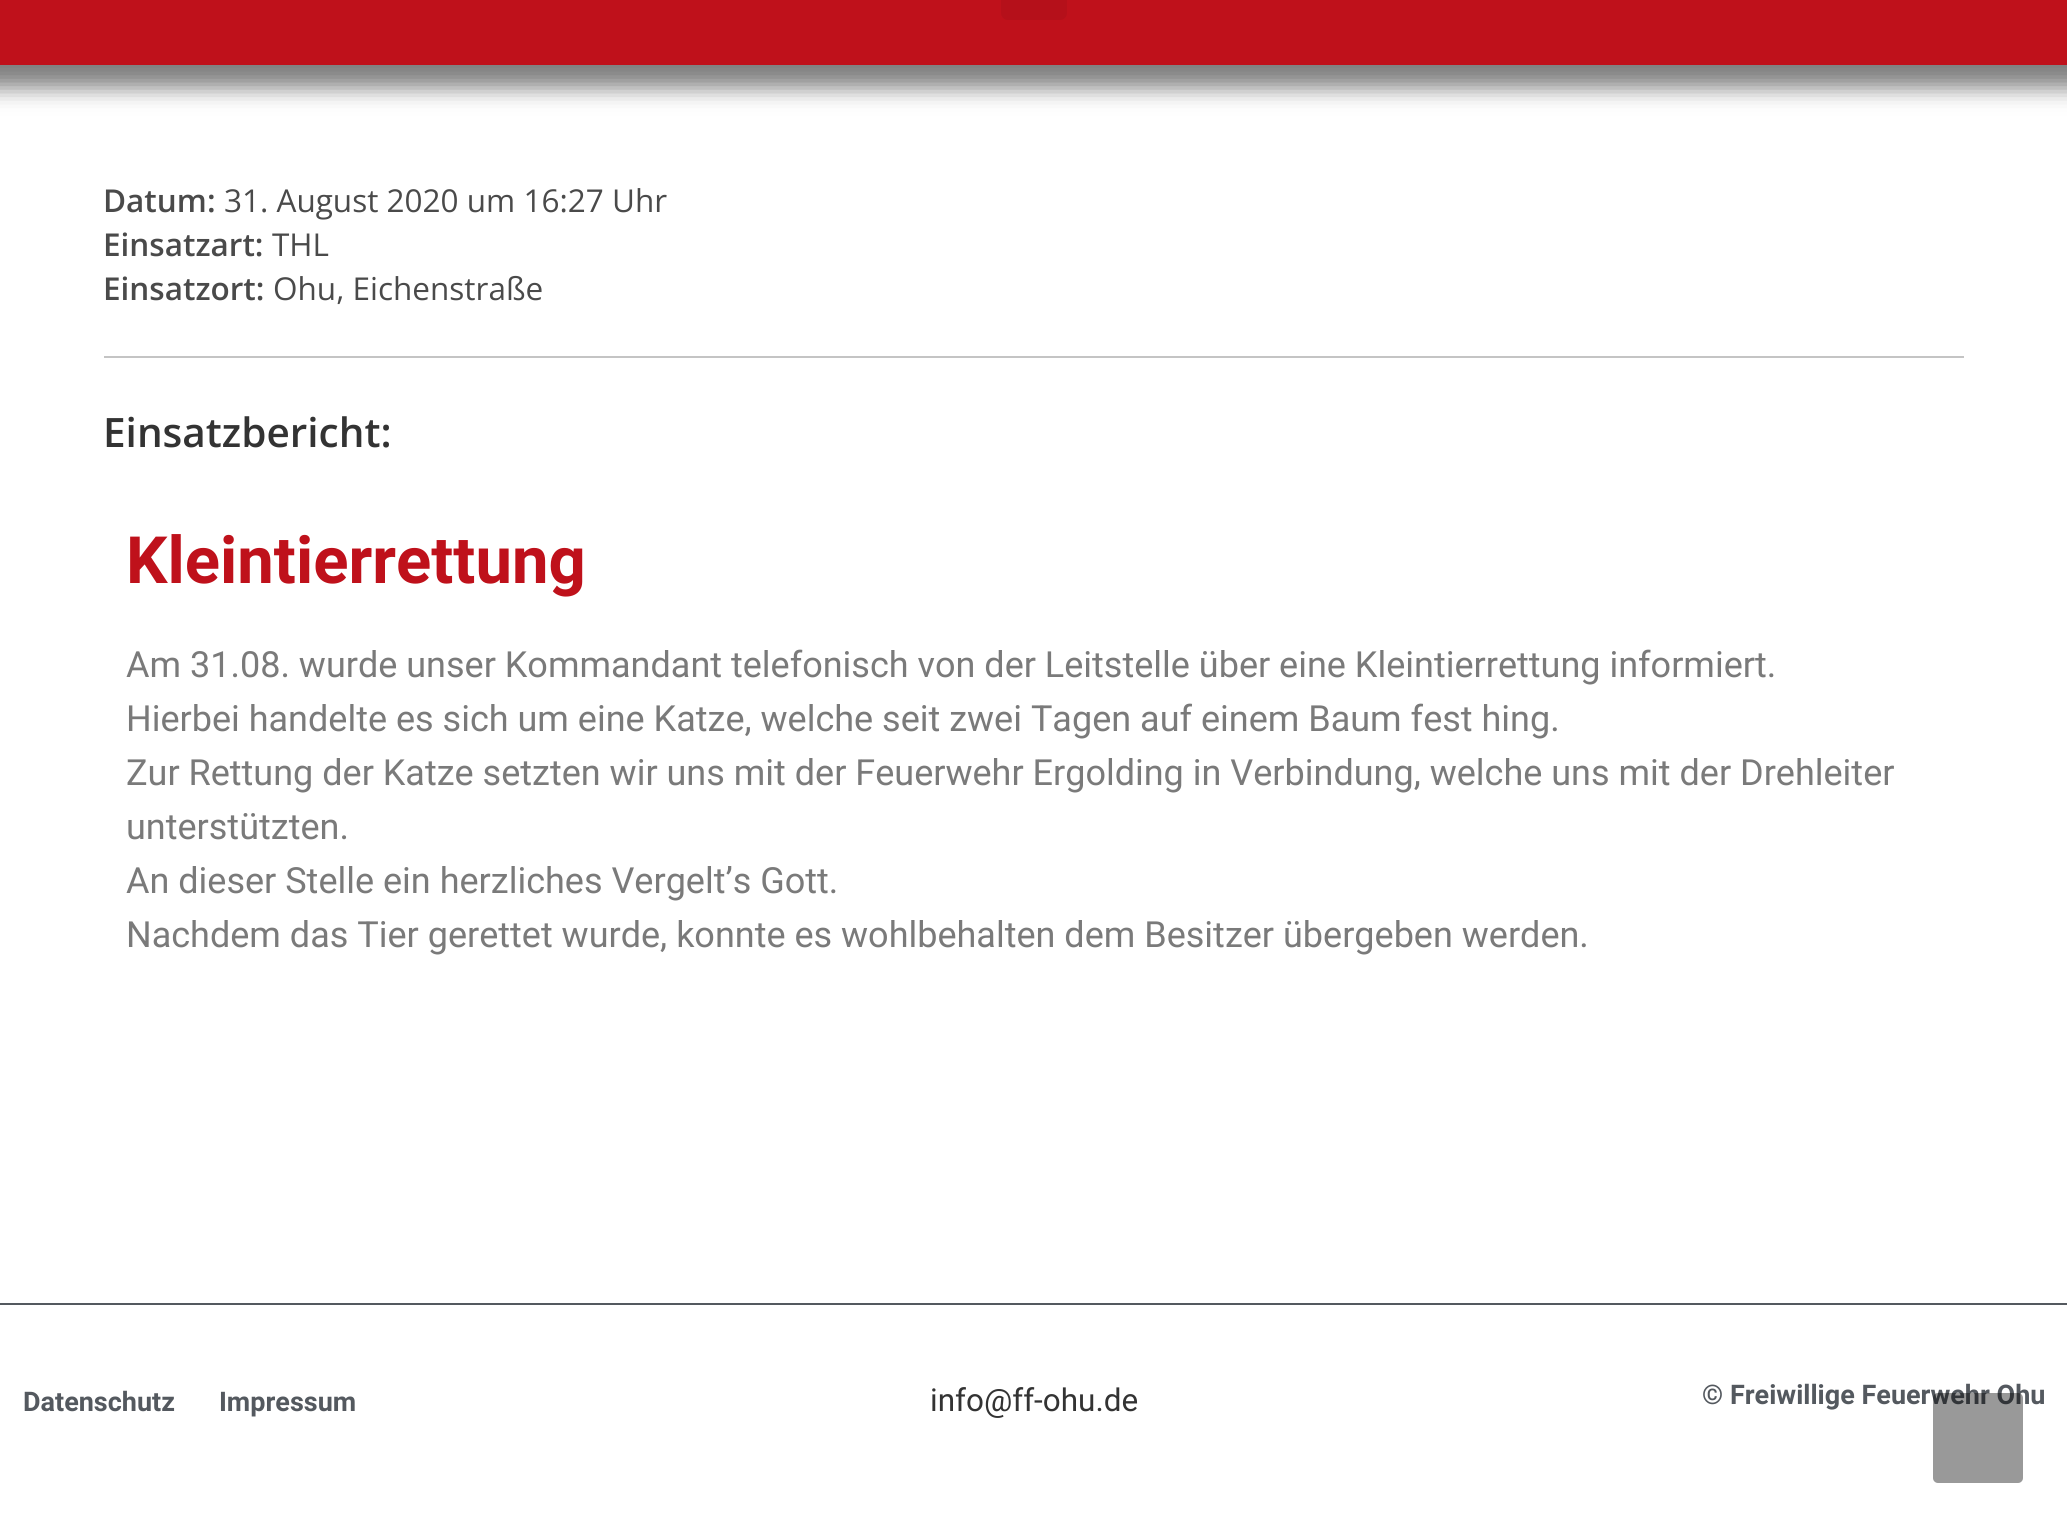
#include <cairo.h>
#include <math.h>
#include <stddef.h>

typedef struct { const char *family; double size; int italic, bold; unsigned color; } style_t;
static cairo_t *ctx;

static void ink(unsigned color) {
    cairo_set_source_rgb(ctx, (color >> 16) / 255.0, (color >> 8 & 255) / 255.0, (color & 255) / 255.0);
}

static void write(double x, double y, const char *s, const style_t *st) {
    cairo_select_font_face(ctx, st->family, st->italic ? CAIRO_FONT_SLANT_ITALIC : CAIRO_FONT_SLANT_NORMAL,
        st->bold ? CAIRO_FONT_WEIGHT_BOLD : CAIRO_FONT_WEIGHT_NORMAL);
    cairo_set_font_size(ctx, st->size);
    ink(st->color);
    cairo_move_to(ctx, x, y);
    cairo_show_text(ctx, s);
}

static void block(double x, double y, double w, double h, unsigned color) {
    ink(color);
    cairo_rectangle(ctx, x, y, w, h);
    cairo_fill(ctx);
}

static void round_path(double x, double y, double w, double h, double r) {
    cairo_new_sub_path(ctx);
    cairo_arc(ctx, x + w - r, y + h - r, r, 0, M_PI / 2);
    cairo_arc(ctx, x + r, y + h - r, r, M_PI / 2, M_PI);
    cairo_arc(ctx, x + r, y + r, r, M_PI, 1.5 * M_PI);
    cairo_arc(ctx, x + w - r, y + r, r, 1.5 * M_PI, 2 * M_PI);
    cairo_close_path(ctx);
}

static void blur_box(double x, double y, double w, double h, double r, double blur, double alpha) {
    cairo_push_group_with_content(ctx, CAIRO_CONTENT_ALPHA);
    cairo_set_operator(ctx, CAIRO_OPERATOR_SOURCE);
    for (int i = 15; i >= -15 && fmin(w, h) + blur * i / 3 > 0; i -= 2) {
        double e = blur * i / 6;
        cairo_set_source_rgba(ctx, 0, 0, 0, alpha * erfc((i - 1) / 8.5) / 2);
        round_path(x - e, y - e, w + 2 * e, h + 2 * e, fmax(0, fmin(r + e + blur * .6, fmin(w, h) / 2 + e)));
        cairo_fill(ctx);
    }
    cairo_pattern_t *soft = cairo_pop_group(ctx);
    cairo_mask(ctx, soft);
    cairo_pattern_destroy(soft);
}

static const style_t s1 = {"Open Sans SemiBold", 31.5, 0, 0, 0x4a4a4a};
static const style_t s2 = {"Open Sans", 31.5, 0, 0, 0x4a4a4a};
static const style_t s3 = {"Open Sans SemiBold", 40.5, 0, 0, 0x333333};
static const style_t s4 = {"Roboto", 65.25, 0, 1, 0xbf111b};
static const style_t s5 = {"Roboto", 36, 0, 0, 0x7a7a7a};
static const style_t s6 = {"Roboto", 27, 0, 1, 0x54595f};
static const style_t s7 = {"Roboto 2", 31.5, 0, 0, 0x333333};

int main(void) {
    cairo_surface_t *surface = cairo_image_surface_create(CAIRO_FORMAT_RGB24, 2067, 1527);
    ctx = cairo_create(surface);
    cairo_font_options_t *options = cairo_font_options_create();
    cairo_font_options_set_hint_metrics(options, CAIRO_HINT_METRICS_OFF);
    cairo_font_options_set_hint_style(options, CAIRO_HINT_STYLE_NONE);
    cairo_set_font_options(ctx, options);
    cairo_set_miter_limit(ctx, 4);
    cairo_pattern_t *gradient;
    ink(0xffffff);
    cairo_paint(ctx);
    ink(0x000000);
    blur_box(-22, -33, 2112, 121, 0, 11, 0.5);
    gradient = cairo_pattern_create_linear(1034, -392, 1034, 65);
    cairo_pattern_add_color_stop_rgba(gradient, 0, 0, 0, 0, 1);
    cairo_pattern_add_color_stop_rgba(gradient, 0.5, 0.749, 0.067, 0.106, 1);
    cairo_set_source(ctx, gradient);
    cairo_pattern_destroy(gradient);
    cairo_rectangle(ctx, 0, 0, 2067, 65);
    cairo_fill(ctx);
    ink(0xb5101a);
    round_path(1001, -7, 66, 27, 7);
    cairo_fill(ctx);
    write(103, 212, "Datum:", &s1);
    write(224, 212, "31. August 2020 um 16:27 Uhr", &s2);
    write(103, 256, "Einsatzart:", &s1);
    write(272, 256, "THL", &s2);
    write(103, 300, "Einsatzort:", &s1);
    write(273, 300, "Ohu, Eichenstraße", &s2);
    block(104, 356, 1860, 2, 0xc4c4c4);
    write(103, 447, "Einsatzbericht:", &s3);
    write(126, 583, "Kleintierrettung", &s4);
    write(126, 677, "Am 31.08. wurde unser Kommandant telefonisch von der Leitstelle über eine Kleintierrettung informiert.", &s5);
    write(126, 731, "Hierbei handelte es sich um eine Katze, welche seit zwei Tagen auf einem Baum fest hing.", &s5);
    write(126, 785, "Zur Rettung der Katze setzten wir uns mit der Feuerwehr Ergolding in Verbindung, welche uns mit der Drehleiter", &s5);
    write(126, 839, "unterstützten.", &s5);
    write(126, 893, "An dieser Stelle ein herzliches Vergelt’s Gott.", &s5);
    write(126, 947, "Nachdem das Tier gerettet wurde, konnte es wohlbehalten dem Besitzer übergeben werden.", &s5);
    block(0, 1303, 2067, 2, 0x54595f);
    write(23, 1411, "Datenschutz", &s6);
    write(219, 1411, "Impressum", &s6);
    write(930, 1411, "info@ff-ohu.de", &s7);
    write(1702, 1404, "© Freiwillige Feuerwehr Ohu", &s6);
    cairo_set_source_rgba(ctx, 0, 0, 0, 0.4);
    round_path(1933, 1393, 90, 90, 5);
    cairo_fill(ctx);
    cairo_surface_write_to_png(surface, "screenshot.png");
    cairo_font_options_destroy(options);
    cairo_destroy(ctx);
    cairo_surface_destroy(surface);
    return 0;
}
